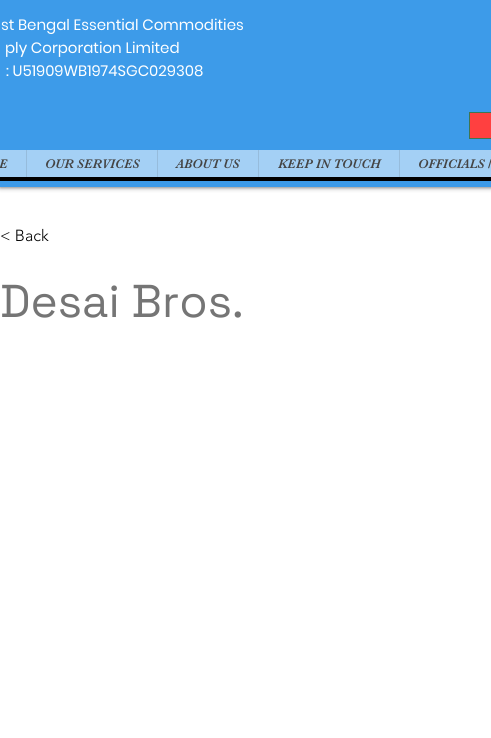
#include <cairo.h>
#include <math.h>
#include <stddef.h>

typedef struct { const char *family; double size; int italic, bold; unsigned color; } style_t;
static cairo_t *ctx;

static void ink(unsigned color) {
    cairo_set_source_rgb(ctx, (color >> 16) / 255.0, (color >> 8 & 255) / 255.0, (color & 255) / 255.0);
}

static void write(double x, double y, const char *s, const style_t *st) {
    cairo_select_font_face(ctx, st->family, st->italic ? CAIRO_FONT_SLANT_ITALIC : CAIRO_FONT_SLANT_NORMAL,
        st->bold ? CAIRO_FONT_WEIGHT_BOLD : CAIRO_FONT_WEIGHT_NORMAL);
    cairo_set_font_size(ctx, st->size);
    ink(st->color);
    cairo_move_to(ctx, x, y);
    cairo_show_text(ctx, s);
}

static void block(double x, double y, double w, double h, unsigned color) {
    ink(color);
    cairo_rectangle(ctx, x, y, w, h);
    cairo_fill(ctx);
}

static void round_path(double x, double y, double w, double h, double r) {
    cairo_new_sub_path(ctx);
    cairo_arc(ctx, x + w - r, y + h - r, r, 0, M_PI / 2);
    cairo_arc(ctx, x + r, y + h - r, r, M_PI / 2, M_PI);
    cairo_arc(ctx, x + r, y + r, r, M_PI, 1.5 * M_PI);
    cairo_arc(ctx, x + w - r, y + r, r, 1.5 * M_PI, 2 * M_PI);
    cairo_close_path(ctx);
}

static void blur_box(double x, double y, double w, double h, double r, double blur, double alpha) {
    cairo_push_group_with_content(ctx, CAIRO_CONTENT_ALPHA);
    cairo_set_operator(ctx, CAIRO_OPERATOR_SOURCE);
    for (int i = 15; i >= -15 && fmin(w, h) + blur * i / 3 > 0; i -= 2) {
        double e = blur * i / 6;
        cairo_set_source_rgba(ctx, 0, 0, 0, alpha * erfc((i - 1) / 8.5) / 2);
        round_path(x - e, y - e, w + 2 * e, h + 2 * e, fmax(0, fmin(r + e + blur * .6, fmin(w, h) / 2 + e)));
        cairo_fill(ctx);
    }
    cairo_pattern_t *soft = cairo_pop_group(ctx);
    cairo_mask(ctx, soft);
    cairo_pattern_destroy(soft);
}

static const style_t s1 = {"Poppins", 15, 0, 0, 0xffffff};
static const style_t s2 = {"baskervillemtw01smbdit", 13, 0, 0, 0x444444};
static const style_t s3 = {"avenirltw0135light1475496 Light", 16, 0, 0, 0x000000};
static const style_t s4 = {"Space Grotesk", 46, 0, 0, 0x757575};

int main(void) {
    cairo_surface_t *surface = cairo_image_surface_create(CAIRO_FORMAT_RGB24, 491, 738);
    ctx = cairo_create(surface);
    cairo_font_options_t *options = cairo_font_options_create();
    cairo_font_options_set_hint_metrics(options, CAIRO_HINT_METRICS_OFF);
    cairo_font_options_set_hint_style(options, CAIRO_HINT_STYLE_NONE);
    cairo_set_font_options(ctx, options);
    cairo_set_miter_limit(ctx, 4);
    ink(0xffffff);
    cairo_paint(ctx);
    ink(0x000000);
    blur_box(0, 0, 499, 187, 0, 2.5, 0.7);
    block(0, 0, 491, 187, 0x3d9be9);
    write(1, 30, "st Bengal Essential Commodities", &s1);
    write(5, 53, "ply Corporation Limited", &s1);
    write(6, 76, ": U51909WB1974SGC029308", &s1);
    ink(0xff4040);
    cairo_rectangle(ctx, 469.5, 112.5, 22, 26);
    cairo_fill_preserve(ctx);
    ink(0x3f7652);
    cairo_set_line_width(ctx, 1);
    cairo_stroke(ctx);
    block(0, 177, 491, 4, 0x000000);
    block(0, 150, 491, 27, 0xa4d0f5);
    write(-1, 168, "E", &s2);
    block(26, 150, 1, 27, 0x96bcdc);
    write(45, 168, "OUR SERVICES", &s2);
    block(157, 150, 1, 27, 0x96bcdc);
    write(176, 168, "ABOUT US", &s2);
    block(258, 150, 1, 27, 0x96bcdc);
    write(278, 168, "KEEP IN TOUCH", &s2);
    block(399, 150, 1, 27, 0x96bcdc);
    write(418, 168, "OFFICIALS /", &s2);
    write(0, 241, "< Back", &s3);
    write(0, 317, "Desai Bros.", &s4);
    cairo_surface_write_to_png(surface, "screenshot.png");
    cairo_font_options_destroy(options);
    cairo_destroy(ctx);
    cairo_surface_destroy(surface);
    return 0;
}
